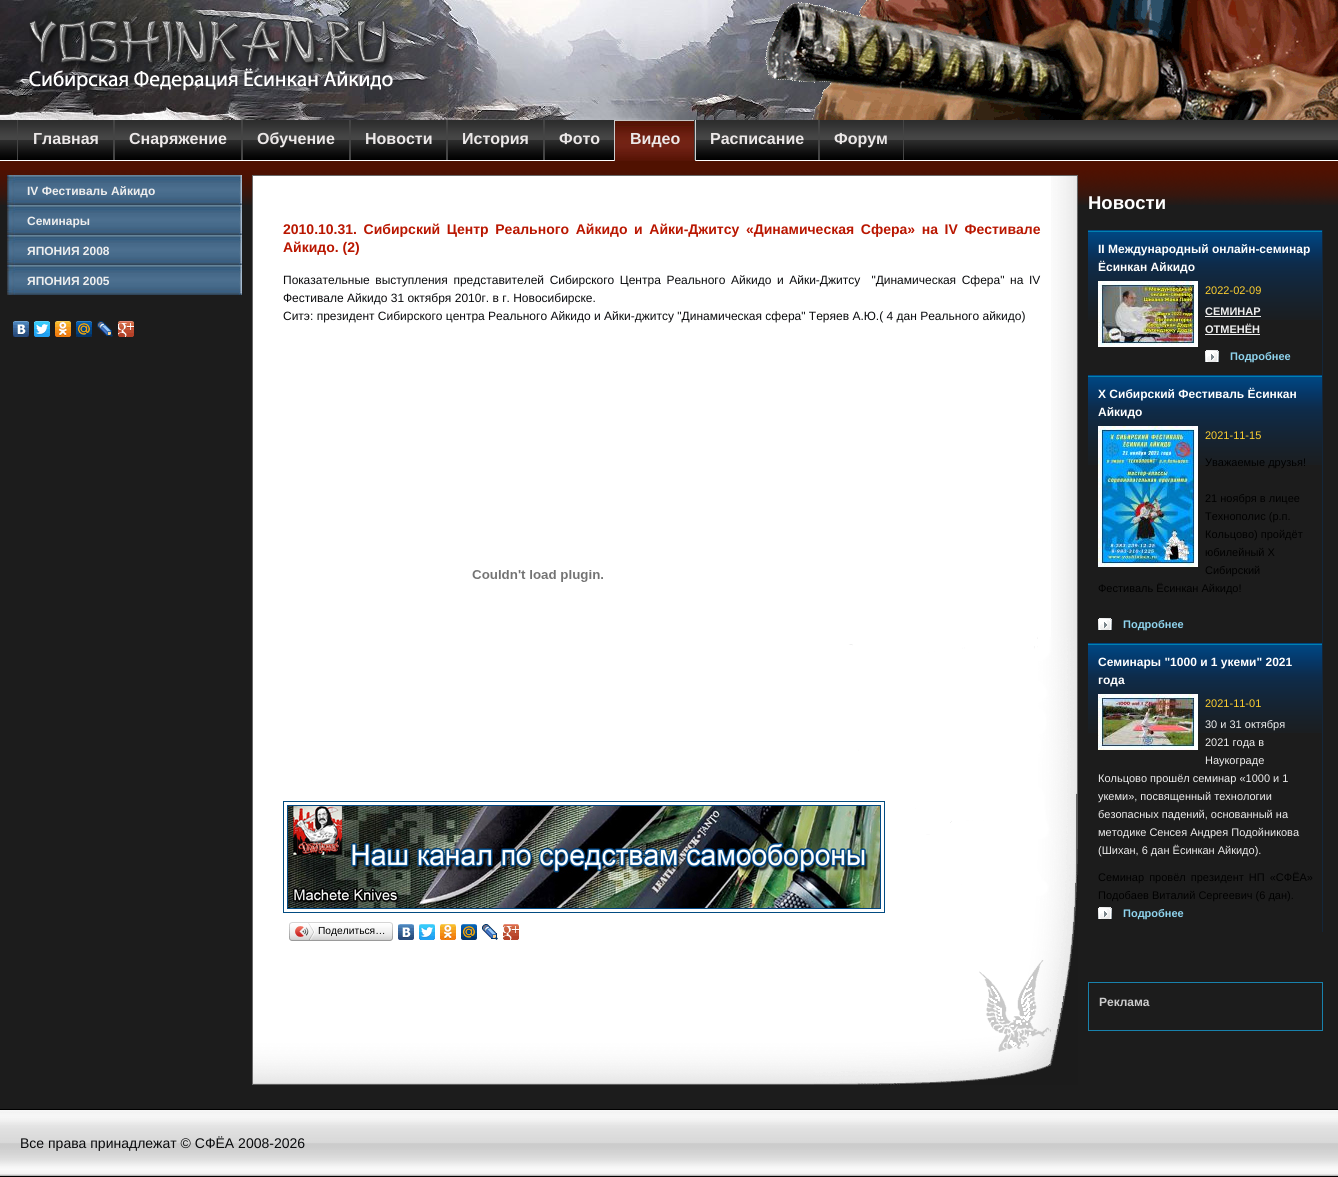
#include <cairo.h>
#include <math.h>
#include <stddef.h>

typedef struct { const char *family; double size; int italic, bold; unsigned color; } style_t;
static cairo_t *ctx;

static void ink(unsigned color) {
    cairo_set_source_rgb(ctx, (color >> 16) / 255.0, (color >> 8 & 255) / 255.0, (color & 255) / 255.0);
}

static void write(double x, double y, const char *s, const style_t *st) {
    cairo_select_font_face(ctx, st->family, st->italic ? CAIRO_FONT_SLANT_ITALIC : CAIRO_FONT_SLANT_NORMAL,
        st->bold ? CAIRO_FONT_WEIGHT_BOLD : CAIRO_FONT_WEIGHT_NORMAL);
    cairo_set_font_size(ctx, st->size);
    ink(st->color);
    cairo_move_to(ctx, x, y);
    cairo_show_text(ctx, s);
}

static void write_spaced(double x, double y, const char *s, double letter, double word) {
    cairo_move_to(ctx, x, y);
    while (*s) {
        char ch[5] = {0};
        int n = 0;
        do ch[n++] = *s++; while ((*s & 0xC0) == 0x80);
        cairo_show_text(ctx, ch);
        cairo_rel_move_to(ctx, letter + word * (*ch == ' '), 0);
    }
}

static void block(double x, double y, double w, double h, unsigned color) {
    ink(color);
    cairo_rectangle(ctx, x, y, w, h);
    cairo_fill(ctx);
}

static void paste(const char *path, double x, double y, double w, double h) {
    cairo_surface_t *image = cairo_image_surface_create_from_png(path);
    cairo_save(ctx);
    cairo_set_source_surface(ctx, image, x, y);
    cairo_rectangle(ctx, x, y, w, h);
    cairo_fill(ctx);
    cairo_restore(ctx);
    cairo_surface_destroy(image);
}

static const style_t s1 = {"Liberation Sans", 16, 0, 1, 0xece8e8};
static const style_t s2 = {"Liberation Sans", 12, 0, 1, 0xeeeeee};
static const style_t s3 = {"Liberation Sans", 14, 0, 1, 0xb91600};
static const style_t s4 = {"Liberation Sans", 12, 0, 0, 0x0a0b0d};
static const style_t s5 = {"Liberation Sans", 10.25, 0, 0, 0x000000};
static const style_t s6 = {"Liberation Sans", 18.5, 0, 1, 0xffffff};
static const style_t s7 = {"Liberation Sans", 12, 0, 1, 0xffffff};
static const style_t s8 = {"Liberation Sans", 11, 0, 0, 0xfecf2f};
static const style_t s9 = {"Liberation Sans", 11, 0, 1, 0xeeeeee};
static const style_t s10 = {"Liberation Sans", 11, 0, 1, 0x8ed3ed};
static const style_t s11 = {"Liberation Sans", 11, 0, 0, 0x000000};
static const style_t s12 = {"Liberation Sans", 11, 0, 0, 0xeeeeee};
static const style_t s13 = {"Liberation Sans", 12, 0, 1, 0xcccccc};
static const style_t s14 = {"Liberation Sans", 14, 0, 0, 0x0a0b0d};

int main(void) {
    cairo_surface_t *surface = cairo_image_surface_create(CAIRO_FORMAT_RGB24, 1338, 1177);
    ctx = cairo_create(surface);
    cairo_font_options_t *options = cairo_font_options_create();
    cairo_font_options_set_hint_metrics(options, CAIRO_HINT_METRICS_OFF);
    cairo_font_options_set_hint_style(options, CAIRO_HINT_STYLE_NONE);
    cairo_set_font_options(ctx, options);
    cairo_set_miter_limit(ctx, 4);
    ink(0x1c1c1c);
    cairo_paint(ctx);
    paste("pic1.png", 0, 170, 1338, 35);
    paste("pic2.png", 0, 0, 866, 120);
    paste("pic3.png", 29, 19, 365, 72);
    paste("pic4.png", 765, 0, 573, 120);
    paste("pic5.png", 0, 120, 1338, 50);
    block(113, 120, 2, 40, 0x444444);
    block(17, 120, 1, 40, 0x444444);
    write(33, 144, "Главная", &s1);
    block(241, 120, 2, 40, 0x444444);
    write(129, 144, "Снаряжение", &s1);
    block(349, 120, 2, 40, 0x444444);
    write(257, 144, "Обучение", &s1);
    block(446, 120, 2, 40, 0x444444);
    write(365, 144, "Новости", &s1);
    block(543, 120, 2, 40, 0x444444);
    write(462, 144, "История", &s1);
    write(559, 144, "Фото", &s1);
    paste("pic6.png", 615, 120, 80, 41);
    block(695, 120, 1, 41, 0xcccccc);
    block(614, 120, 1, 41, 0xcccccc);
    write(630, 144, "Видео", &s1);
    block(818, 120, 2, 40, 0x444444);
    block(694, 120, 1, 40, 0x444444);
    write(710, 144, "Расписание", &s1);
    block(903, 120, 1, 40, 0x444444);
    write(834, 144, "Форум", &s1);
    paste("pic7.png", 7, 175, 235, 30);
    write(27, 195, "IV Фестиваль Айкидо", &s2);
    paste("pic7.png", 7, 205, 235, 30);
    write(27, 225, "Семинары", &s2);
    paste("pic7.png", 7, 235, 235, 30);
    write(27, 255, "ЯПОНИЯ 2008", &s2);
    paste("pic7.png", 7, 265, 235, 30);
    write(27, 285, "ЯПОНИЯ 2005", &s2);
    paste("pic8.png", 13, 321, 16, 16);
    paste("pic9.png", 34, 321, 16, 16);
    paste("pic10.png", 55, 321, 16, 16);
    paste("pic11.png", 76, 321, 16, 16);
    paste("pic12.png", 97, 321, 16, 16);
    paste("pic13.png", 118, 321, 16, 16);
    block(253, 176, 798, 852, 0xffffff);
    block(252, 175, 826, 1, 0x696969);
    block(252, 175, 1, 910, 0x696969);
    paste("pic14.png", 1051, 176, 27, 461);
    paste("pic15.png", 253, 1028, 561, 57);
    paste("pic16.png", 814, 637, 264, 448);
    cairo_set_font_size(ctx, 14);
    ink(0xb91600);
    write_spaced(283, 234, "2010.10.31. Сибирский Центр Реального Айкидо и Айки-Джитсу «Динамическая Сфера» на IV Фестивале", 0, 2.75);
    write(283, 252, "Айкидо. (2)", &s3);
    cairo_select_font_face(ctx, "Liberation Sans", CAIRO_FONT_SLANT_NORMAL, CAIRO_FONT_WEIGHT_NORMAL);
    cairo_set_font_size(ctx, 12);
    ink(0x0a0b0d);
    write_spaced(283, 284, "Показательные выступления представителей Сибирского Центра Реального", 0, 2.25);
    write_spaced(731, 284, "Айкидо и Айки-Джитсу  \"Динамическая Сфера\" на IV", 0, 2.25);
    write(283, 302, "Фестивале Айкидо 31 октября 2010г. в г. Новосибирске.", &s4);
    write(283, 320, "Ситэ: президент Сибирского центра Реального Айкидо и Айки-джитсу \"Динамическая сфера\" Теряев А.Ю.( 4 дан Реального айкидо)", &s4);
    paste("pic17.png", 472, 570, 131, 12);
    cairo_rectangle(ctx, 283.5, 801.5, 601, 111);
    ink(0x024c82);
    cairo_set_line_width(ctx, 1);
    cairo_stroke(ctx);
    paste("pic18.png", 287, 803, 594, 106);
    paste("pic19.png", 292, 922, 98, 19);
    paste("pic20.png", 289, 922, 3, 19);
    paste("pic21.png", 295, 923, 20, 17);
    write(318, 934, "Поделиться…", &s5);
    paste("pic22.png", 390, 922, 3, 19);
    paste("pic23.png", 398, 924, 16, 16);
    paste("pic24.png", 419, 924, 16, 16);
    paste("pic25.png", 440, 924, 16, 16);
    paste("pic26.png", 461, 924, 16, 16);
    paste("pic27.png", 482, 924, 16, 16);
    paste("pic28.png", 503, 924, 16, 16);
    write(1088, 209, "Новости", &s6);
    paste("pic29.png", 1088, 230, 234, 90);
    block(1322, 230, 1, 702, 0x13263a);
    write(1098, 253, "II Международный онлайн-семинар", &s7);
    write(1098, 271, "Ёсинкан Айкидо", &s7);
    paste("pic30.png", 1098, 281, 100, 66);
    write(1205, 294, "2022-02-09", &s8);
    write(1205, 315, "СЕМИНАР", &s9);
    block(1205, 316, 56, 1, 0xeeeeee);
    write(1205, 333, "ОТМЕНЁН", &s9);
    block(1205, 334, 55, 1, 0xeeeeee);
    paste("pic31.png", 1205, 350, 14, 12);
    write(1230, 360, "Подробнее", &s10);
    paste("pic29.png", 1088, 375, 234, 90);
    write(1098, 398, "X Сибирский Фестиваль Ёсинкан", &s7);
    write(1098, 416, "Айкидо", &s7);
    paste("pic32.png", 1098, 426, 100, 141);
    write(1205, 439, "2021-11-15", &s8);
    write(1205, 466, "Уважаемые друзья!", &s11);
    write(1205, 502, "21 ноября в лицее", &s11);
    write(1205, 520, "Технополис (р.п.", &s11);
    write(1205, 538, "Кольцово) пройдёт", &s11);
    write(1205, 556, "юбилейный X", &s11);
    write(1205, 574, "Сибирский", &s11);
    write(1098, 592, "Фестиваль Ёсинкан Айкидо!", &s11);
    paste("pic31.png", 1098, 618, 14, 12);
    write(1123, 628, "Подробнее", &s10);
    paste("pic29.png", 1088, 643, 234, 90);
    write(1098, 666, "Семинары \"1000 и 1 укеми\" 2021", &s7);
    write(1098, 684, "года", &s7);
    paste("pic33.png", 1098, 694, 100, 56);
    write(1205, 707, "2021-11-01", &s8);
    write(1205, 728, "30 и 31 октября", &s12);
    write(1205, 746, "2021 года в", &s12);
    write(1205, 764, "Наукограде", &s12);
    write(1098, 782, "Кольцово прошёл семинар «1000 и 1", &s12);
    write(1098, 800, "укеми», посвященный технологии", &s12);
    write(1098, 818, "безопасных падений, основанный на", &s12);
    write(1098, 836, "методике Сенсея Андрея Подойникова", &s12);
    write(1098, 854, "(Шихан, 6 дан Ёсинкан Айкидо).", &s12);
    ink(0x000000);
    write_spaced(1098, 881, "Семинар провёл президент НП «СФЁА»", 0, 2);
    write(1098, 899, "Подобаев Виталий Сергеевич (6 дан).", &s11);
    paste("pic31.png", 1098, 907, 14, 12);
    write(1123, 917, "Подробнее", &s10);
    cairo_rectangle(ctx, 1088.5, 982.5, 234, 48);
    ink(0x1881ac);
    cairo_stroke(ctx);
    write(1099, 1006, "Реклама", &s13);
    paste("pic34.png", 0, 1109, 1338, 68);
    write(20, 1148, "Все права принадлежат © СФЁА 2008-2026", &s14);
    cairo_surface_write_to_png(surface, "screenshot.png");
    cairo_font_options_destroy(options);
    cairo_destroy(ctx);
    cairo_surface_destroy(surface);
    return 0;
}
